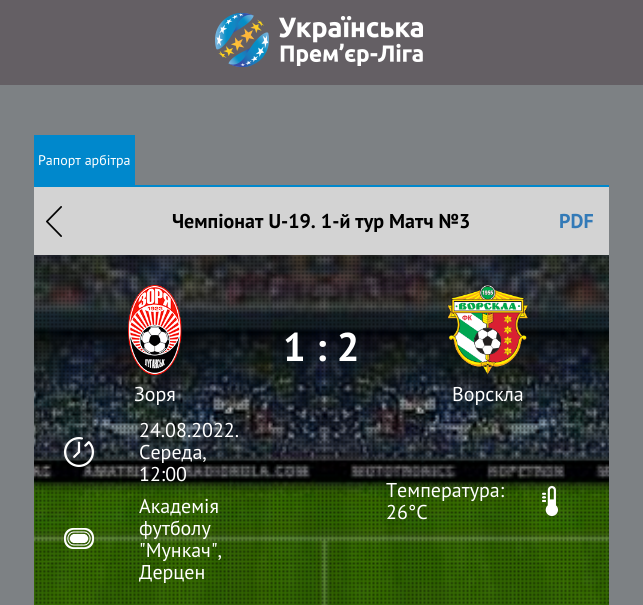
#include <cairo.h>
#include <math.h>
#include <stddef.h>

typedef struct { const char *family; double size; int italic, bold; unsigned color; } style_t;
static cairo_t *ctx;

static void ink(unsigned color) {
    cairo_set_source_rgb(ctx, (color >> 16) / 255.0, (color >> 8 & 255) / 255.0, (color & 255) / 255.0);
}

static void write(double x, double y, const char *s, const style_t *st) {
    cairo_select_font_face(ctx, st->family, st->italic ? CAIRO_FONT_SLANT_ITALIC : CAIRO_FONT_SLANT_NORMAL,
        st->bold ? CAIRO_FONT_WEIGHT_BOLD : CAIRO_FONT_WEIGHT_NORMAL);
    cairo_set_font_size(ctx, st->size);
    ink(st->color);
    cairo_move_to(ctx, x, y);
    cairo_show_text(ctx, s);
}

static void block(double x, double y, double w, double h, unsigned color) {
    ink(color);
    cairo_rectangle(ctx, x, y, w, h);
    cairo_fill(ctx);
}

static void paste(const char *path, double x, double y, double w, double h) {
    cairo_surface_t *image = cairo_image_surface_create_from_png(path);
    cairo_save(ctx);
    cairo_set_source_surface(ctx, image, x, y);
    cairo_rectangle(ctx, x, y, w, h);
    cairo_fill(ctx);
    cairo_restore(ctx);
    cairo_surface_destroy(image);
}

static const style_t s1 = {"PT Sans", 14, 0, 0, 0xffffff};
static const style_t s2 = {"PT Sans", 20, 0, 1, 0x000000};
static const style_t s3 = {"PT Sans", 20, 0, 1, 0x337ab7};
static const style_t s4 = {"PT Sans", 40, 0, 1, 0xffffff};
static const style_t s5 = {"PT Sans", 20, 0, 0, 0xffffff};

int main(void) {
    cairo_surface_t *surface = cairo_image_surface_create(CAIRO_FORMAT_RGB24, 643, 605);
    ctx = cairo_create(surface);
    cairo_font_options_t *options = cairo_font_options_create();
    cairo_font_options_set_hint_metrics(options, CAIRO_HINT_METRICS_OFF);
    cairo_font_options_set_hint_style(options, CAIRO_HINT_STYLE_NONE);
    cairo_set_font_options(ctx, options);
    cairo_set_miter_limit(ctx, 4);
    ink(0x7d8184);
    cairo_paint(ctx);
    block(0, 0, 643, 85, 0x645f64);
    paste("pic1.png", 215, 13, 208, 54);
    block(34, 135, 101, 50, 0x0088cc);
    write(38, 165, "Рапорт арбітра", &s1);
    block(34, 187, 575, 68, 0xd3d3d3);
    block(34, 185, 575, 2, 0x0088cc);
    paste("pic2.png", 46, 206, 16, 31);
    write(172, 228, "Чемпіонат U-19. 1-й тур Матч №3", &s2);
    write(559, 228, "PDF", &s3);
    paste("pic3.png", 34, 255, 575, 350);
    write(283, 361, "1 : 2", &s4);
    paste("pic4.png", 128, 285, 54, 90);
    write(134, 401, "Зоря", &s5);
    paste("pic5.png", 447, 285, 81, 90);
    write(452, 401, "Ворскла", &s5);
    paste("pic6.png", 64, 437, 30, 30);
    write(139, 437, "24.08.2022.", &s5);
    write(139, 459, "Середа,", &s5);
    write(139, 481, "12:00", &s5);
    paste("pic7.png", 64, 528, 30, 21);
    write(139, 513, "Академія", &s5);
    write(139, 535, "футболу", &s5);
    write(139, 557, "\"Мункач\",", &s5);
    write(139, 579, "Дерцен", &s5);
    paste("pic8.png", 542, 486, 16, 30);
    write(386, 497, "Температура:", &s5);
    write(386, 519, "26°C", &s5);
    cairo_surface_write_to_png(surface, "screenshot.png");
    cairo_font_options_destroy(options);
    cairo_destroy(ctx);
    cairo_surface_destroy(surface);
    return 0;
}
